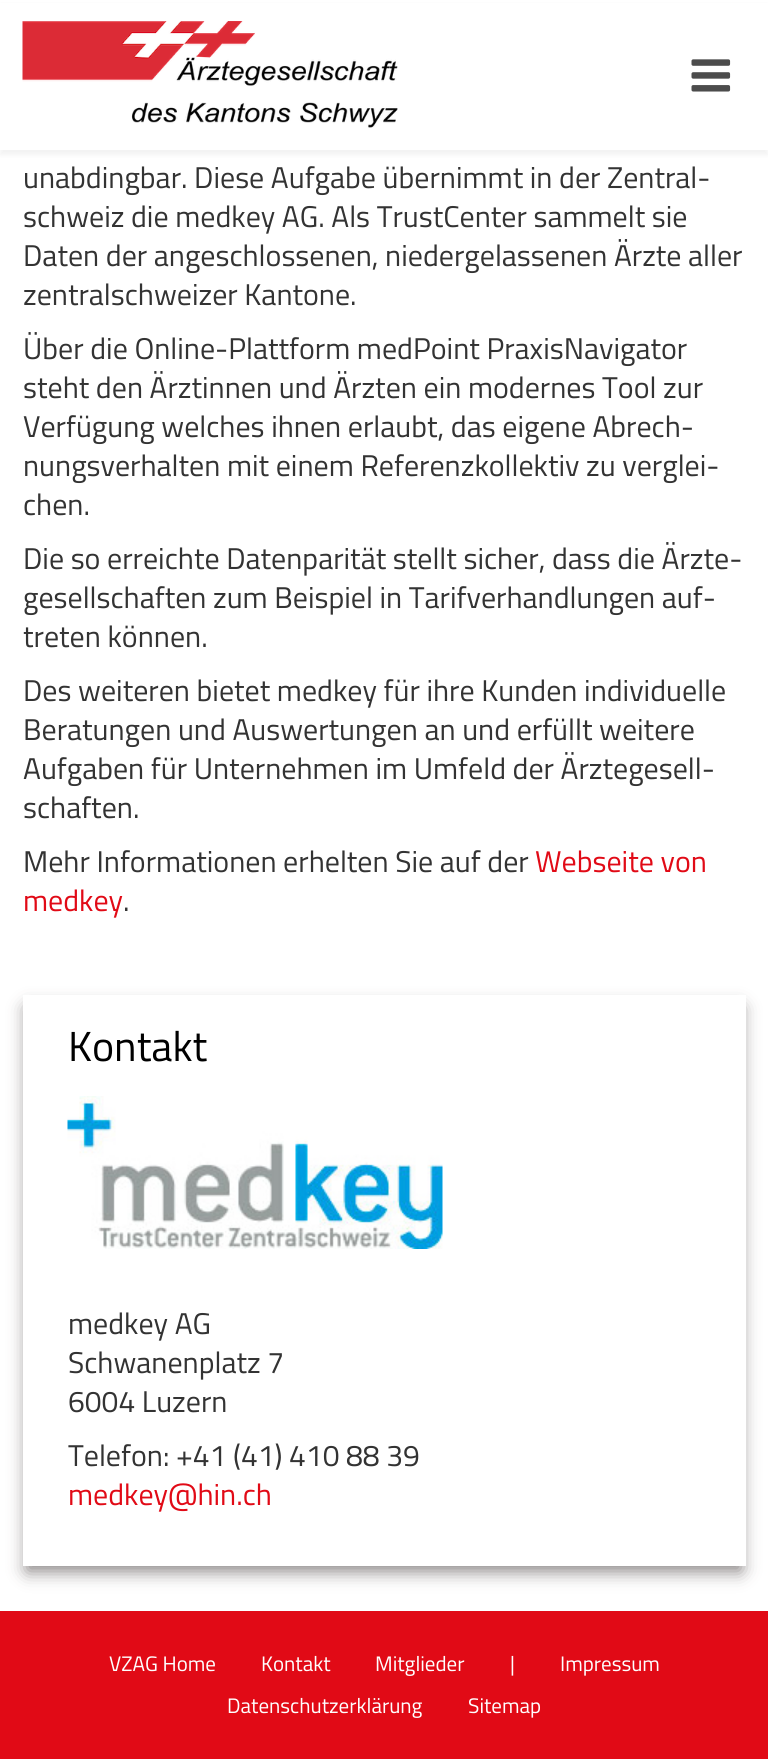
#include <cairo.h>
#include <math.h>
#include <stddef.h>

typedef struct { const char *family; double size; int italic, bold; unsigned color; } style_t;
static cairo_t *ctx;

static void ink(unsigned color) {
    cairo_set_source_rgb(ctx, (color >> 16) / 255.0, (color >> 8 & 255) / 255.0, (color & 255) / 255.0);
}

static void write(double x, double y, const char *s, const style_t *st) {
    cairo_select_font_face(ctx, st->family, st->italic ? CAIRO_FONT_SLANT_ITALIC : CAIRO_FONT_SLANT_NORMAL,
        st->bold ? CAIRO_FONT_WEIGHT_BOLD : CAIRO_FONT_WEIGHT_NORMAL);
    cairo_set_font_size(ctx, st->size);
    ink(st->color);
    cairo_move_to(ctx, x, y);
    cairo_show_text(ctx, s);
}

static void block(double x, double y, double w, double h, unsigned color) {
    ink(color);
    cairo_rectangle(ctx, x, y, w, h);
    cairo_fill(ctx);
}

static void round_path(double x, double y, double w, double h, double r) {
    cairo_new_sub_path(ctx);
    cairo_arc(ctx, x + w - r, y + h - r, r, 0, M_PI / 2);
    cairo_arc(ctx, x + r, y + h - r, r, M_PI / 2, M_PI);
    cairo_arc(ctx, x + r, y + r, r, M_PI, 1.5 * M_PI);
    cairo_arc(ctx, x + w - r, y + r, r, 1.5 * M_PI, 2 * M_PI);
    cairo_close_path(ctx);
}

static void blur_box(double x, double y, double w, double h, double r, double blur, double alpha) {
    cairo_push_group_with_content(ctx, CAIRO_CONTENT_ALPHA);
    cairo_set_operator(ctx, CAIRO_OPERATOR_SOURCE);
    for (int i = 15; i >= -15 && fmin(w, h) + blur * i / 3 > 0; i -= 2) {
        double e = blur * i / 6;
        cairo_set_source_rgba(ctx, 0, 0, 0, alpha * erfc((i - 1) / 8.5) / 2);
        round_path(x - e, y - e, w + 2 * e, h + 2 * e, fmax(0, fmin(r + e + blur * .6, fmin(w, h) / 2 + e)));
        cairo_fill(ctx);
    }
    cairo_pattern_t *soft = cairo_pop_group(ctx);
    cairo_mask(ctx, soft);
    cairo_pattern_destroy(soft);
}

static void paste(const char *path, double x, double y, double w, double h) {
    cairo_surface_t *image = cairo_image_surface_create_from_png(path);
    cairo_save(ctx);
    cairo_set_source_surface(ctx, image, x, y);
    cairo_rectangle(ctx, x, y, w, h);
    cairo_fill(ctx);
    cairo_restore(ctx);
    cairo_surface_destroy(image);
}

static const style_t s1 = {"Titillium Web", 30, 0, 0, 0x333333};
static const style_t s2 = {"Titillium Web", 30, 0, 0, 0xe10a16};
static const style_t s3 = {"Titillium Web", 42, 0, 0, 0x000000};
static const style_t s4 = {"Titillium Web", 21, 0, 0, 0xffffff};

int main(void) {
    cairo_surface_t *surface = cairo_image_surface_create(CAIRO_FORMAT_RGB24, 768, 1759);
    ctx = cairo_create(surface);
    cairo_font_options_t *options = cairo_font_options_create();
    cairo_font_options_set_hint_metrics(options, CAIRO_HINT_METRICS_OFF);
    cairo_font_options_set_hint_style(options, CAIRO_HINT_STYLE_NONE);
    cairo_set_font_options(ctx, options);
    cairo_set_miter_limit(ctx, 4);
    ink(0xffffff);
    cairo_paint(ctx);
    ink(0x000000);
    blur_box(0, 5, 768, 150, 0, 2, 0.05);
    block(0, 3, 768, 147, 0xffffff);
    paste("pic1.png", 22, 21, 376, 107);
    paste("pic2.png", 691, 59, 40, 33);
    write(23, 188, "unabdingbar. Diese Aufgabe übernimmt in der Zentral-", &s1);
    write(23, 227, "schweiz die medkey AG. Als TrustCenter sammelt sie", &s1);
    write(23, 266, "Daten der angeschlossenen, niedergelassenen Ärzte aller", &s1);
    write(23, 305, "zentralschweizer Kantone.", &s1);
    write(23, 359, "Über die Online-Plattform medPoint PraxisNavigator", &s1);
    write(23, 398, "steht den Ärztinnen und Ärzten ein modernes Tool zur", &s1);
    write(23, 437, "Verfügung welches ihnen erlaubt, das eigene Abrech-", &s1);
    write(23, 476, "nungsverhalten mit einem Referenzkollektiv zu verglei-", &s1);
    write(23, 515, "chen.", &s1);
    write(23, 569, "Die so erreichte Datenparität stellt sicher, dass die Ärzte-", &s1);
    write(23, 608, "gesellschaften zum Beispiel in Tarifverhandlungen auf-", &s1);
    write(23, 647, "treten können.", &s1);
    write(23, 701, "Des weiteren bietet medkey für ihre Kunden individuelle", &s1);
    write(23, 740, "Beratungen und Auswertungen an und erfüllt weitere", &s1);
    write(23, 779, "Aufgaben für Unternehmen im Umfeld der Ärztegesell-", &s1);
    write(23, 818, "schaften.", &s1);
    write(23, 872, "Mehr Informationen erhelten Sie auf der", &s1);
    write(535, 872, "Webseite von", &s2);
    write(23, 911, "medkey", &s2);
    write(123, 911, ".", &s1);
    ink(0x312929);
    blur_box(27, 1008, 714, 563, 0, 9, 0.6);
    block(23, 995, 723, 571, 0xffffff);
    write(68, 1061, "Kontakt", &s3);
    paste("pic3.png", 67, 1096, 376, 153);
    write(68, 1334, "medkey AG", &s1);
    write(68, 1373, "Schwanenplatz 7", &s1);
    write(68, 1412, "6004 Luzern", &s1);
    write(68, 1466, "Telefon: +41 (41) 410 88 39", &s1);
    write(68, 1505, "medkey@hin.ch", &s2);
    block(0, 1611, 768, 148, 0xe10a16);
    write(109, 1671, "VZAG Home", &s4);
    write(261, 1671, "Kontakt", &s4);
    write(375, 1671, "Mitglieder", &s4);
    write(510, 1671, "|", &s4);
    write(560, 1671, "Impressum", &s4);
    write(227, 1713, "Datenschutzerklärung", &s4);
    write(468, 1713, "Sitemap", &s4);
    cairo_surface_write_to_png(surface, "screenshot.png");
    cairo_font_options_destroy(options);
    cairo_destroy(ctx);
    cairo_surface_destroy(surface);
    return 0;
}
